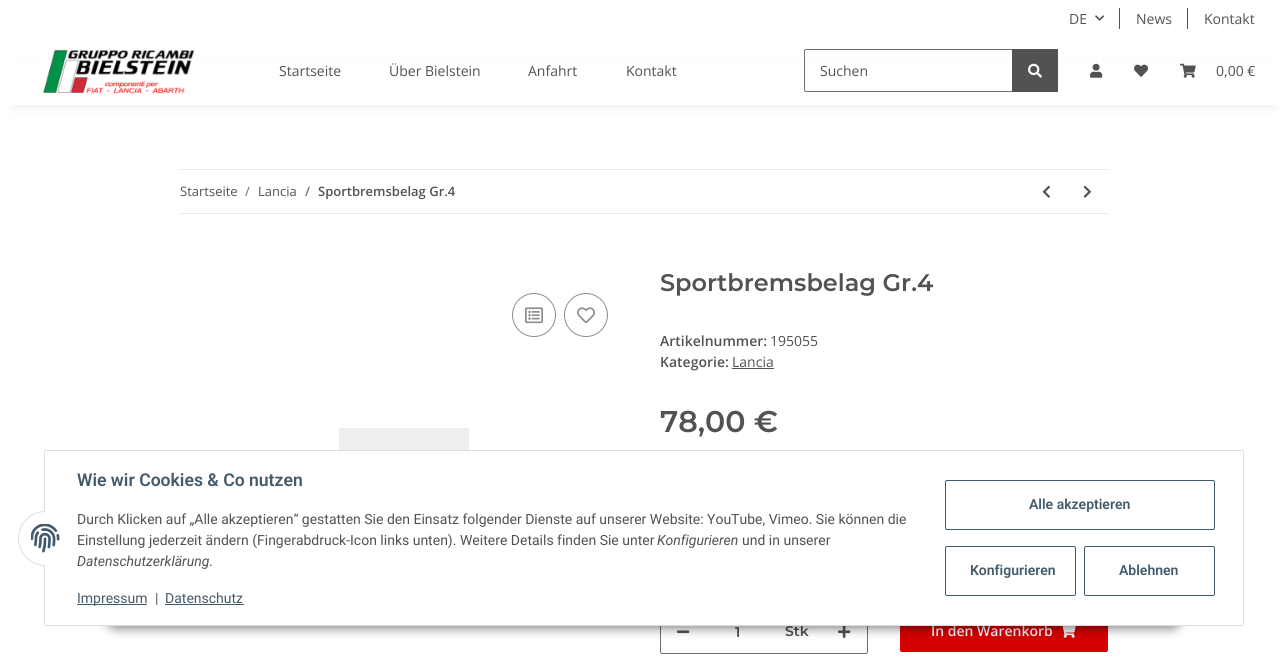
#include <cairo.h>
#include <math.h>
#include <stddef.h>

typedef struct { const char *family; double size; int italic, bold; unsigned color; } style_t;
static cairo_t *ctx;

static void ink(unsigned color) {
    cairo_set_source_rgb(ctx, (color >> 16) / 255.0, (color >> 8 & 255) / 255.0, (color & 255) / 255.0);
}

static void write(double x, double y, const char *s, const style_t *st) {
    cairo_select_font_face(ctx, st->family, st->italic ? CAIRO_FONT_SLANT_ITALIC : CAIRO_FONT_SLANT_NORMAL,
        st->bold ? CAIRO_FONT_WEIGHT_BOLD : CAIRO_FONT_WEIGHT_NORMAL);
    cairo_set_font_size(ctx, st->size);
    ink(st->color);
    cairo_move_to(ctx, x, y);
    cairo_show_text(ctx, s);
}

static void block(double x, double y, double w, double h, unsigned color) {
    ink(color);
    cairo_rectangle(ctx, x, y, w, h);
    cairo_fill(ctx);
}

static void round_path(double x, double y, double w, double h, double r) {
    cairo_new_sub_path(ctx);
    cairo_arc(ctx, x + w - r, y + h - r, r, 0, M_PI / 2);
    cairo_arc(ctx, x + r, y + h - r, r, M_PI / 2, M_PI);
    cairo_arc(ctx, x + r, y + r, r, M_PI, 1.5 * M_PI);
    cairo_arc(ctx, x + w - r, y + r, r, 1.5 * M_PI, 2 * M_PI);
    cairo_close_path(ctx);
}

static void blur_box(double x, double y, double w, double h, double r, double blur, double alpha) {
    cairo_push_group_with_content(ctx, CAIRO_CONTENT_ALPHA);
    cairo_set_operator(ctx, CAIRO_OPERATOR_SOURCE);
    for (int i = 15; i >= -15 && fmin(w, h) + blur * i / 3 > 0; i -= 2) {
        double e = blur * i / 6;
        cairo_set_source_rgba(ctx, 0, 0, 0, alpha * erfc((i - 1) / 8.5) / 2);
        round_path(x - e, y - e, w + 2 * e, h + 2 * e, fmax(0, fmin(r + e + blur * .6, fmin(w, h) / 2 + e)));
        cairo_fill(ctx);
    }
    cairo_pattern_t *soft = cairo_pop_group(ctx);
    cairo_mask(ctx, soft);
    cairo_pattern_destroy(soft);
}

static void paste(const char *path, double x, double y, double w, double h) {
    cairo_surface_t *image = cairo_image_surface_create_from_png(path);
    cairo_save(ctx);
    cairo_set_source_surface(ctx, image, x, y);
    cairo_rectangle(ctx, x, y, w, h);
    cairo_fill(ctx);
    cairo_restore(ctx);
    cairo_surface_destroy(image);
}

static const style_t s1 = {"Open Sans", 14, 0, 0, 0x525252};
static const style_t s2 = {"Open Sans", 13, 0, 0, 0x525252};
static const style_t s3 = {"Open Sans", 13, 0, 0, 0x707070};
static const style_t s4 = {"Open Sans SemiBold", 13, 0, 0, 0x707070};
static const style_t s5 = {"Open Sans SemiBold", 13, 0, 0, 0x525252};
static const style_t s6 = {"Montserrat SemiBold", 24, 0, 0, 0x525252};
static const style_t s7 = {"Open Sans SemiBold", 14, 0, 0, 0x525252};
static const style_t s8 = {"Montserrat SemiBold", 30, 0, 0, 0x525252};
static const style_t s9 = {"Montserrat SemiBold", 14, 0, 0, 0x525252};
static const style_t s10 = {"Open Sans SemiBold", 14, 0, 0, 0xf5f7fa};
static const style_t s11 = {"Roboto SemiBold", 17.6, 0, 0, 0x435a6b};
static const style_t s12 = {"Roboto", 14, 0, 0, 0x525252};
static const style_t s13 = {"Roboto", 14, 1, 0, 0x525252};
static const style_t s14 = {"Roboto", 14, 0, 0, 0x435a6b};
static const style_t s15 = {"Roboto SemiBold", 14, 0, 0, 0x435a6b};

int main(void) {
    cairo_surface_t *surface = cairo_image_surface_create(CAIRO_FORMAT_RGB24, 1287, 658);
    ctx = cairo_create(surface);
    cairo_font_options_t *options = cairo_font_options_create();
    cairo_font_options_set_hint_metrics(options, CAIRO_HINT_METRICS_OFF);
    cairo_font_options_set_hint_style(options, CAIRO_HINT_STYLE_NONE);
    cairo_set_font_options(ctx, options);
    cairo_set_miter_limit(ctx, 4);
    ink(0xffffff);
    cairo_paint(ctx);
    write(1069, 24, "DE", &s1);
    paste("pic1.png", 1095, 15, 9, 6);
    block(1119, 8, 1, 21, 0x525252);
    write(1136, 24, "News", &s1);
    block(1187, 8, 1, 21, 0x525252);
    write(1204, 24, "Kontakt", &s1);
    ink(0x000000);
    blur_box(12, 65, 1263, 44, 0, 4.5, 0.06);
    block(8, 61, 1271, 44, 0xffffff);
    paste("pic2.png", 43, 49, 152, 45);
    write(279, 76, "Startseite", &s1);
    write(389, 76, "Über Bielstein", &s1);
    write(528, 76, "Anfahrt", &s1);
    write(626, 76, "Kontakt", &s1);
    round_path(804.5, 49.5, 208, 42, 1.5);
    ink(0x707070);
    cairo_set_line_width(ctx, 1);
    cairo_stroke(ctx);
    write(820, 76, "Suchen", &s1);
    block(1012, 49, 46, 43, 0x525252);
    paste("pic3.png", 1028, 63, 14, 15);
    paste("pic4.png", 1090, 63, 13, 15);
    paste("pic5.png", 1134, 64, 14, 13);
    paste("pic6.png", 1180, 63, 16, 15);
    write(1216, 76, "0,00 €", &s1);
    block(180, 169, 928, 1, 0xebebeb);
    block(180, 213, 928, 1, 0xebebeb);
    write(180, 196, "Startseite", &s2);
    write(245, 196, "/", &s3);
    write(258, 196, "Lancia", &s2);
    write(305, 196, "/", &s4);
    write(318, 196, "Sportbremsbelag Gr.4", &s5);
    paste("pic7.png", 1042, 185, 8, 13);
    paste("pic8.png", 1083, 185, 8, 13);
    cairo_arc(ctx, 534, 315, 21.5, 0, 2 * M_PI);
    ink(0x8d8d8d);
    cairo_stroke(ctx);
    paste("pic9.png", 525, 307, 18, 17);
    cairo_arc(ctx, 586, 315, 21.5, 0, 2 * M_PI);
    cairo_stroke(ctx);
    paste("pic10.png", 577, 307, 18, 17);
    paste("pic11.png", 339, 428, 130, 22);
    write(660, 291, "Sportbremsbelag Gr.4", &s6);
    write(660, 346, "Artikelnummer:", &s7);
    write(770, 346, "195055", &s1);
    write(660, 367, "Kategorie:", &s7);
    write(732, 367, "Lancia", &s1);
    block(732, 368, 42, 1, 0x525252);
    write(660, 432, "78,00 €", &s8);
    round_path(660.5, 609.5, 207, 44, 1.5);
    ink(0x707070);
    cairo_stroke(ctx);
    paste("pic12.png", 677, 630, 13, 4);
    write(735, 637, "1", &s9);
    write(785, 636, "Stk", &s9);
    paste("pic13.png", 838, 626, 13, 12);
    ink(0xd50000);
    round_path(900.5, 609.5, 207, 42, 1.5);
    cairo_fill_preserve(ctx);
    cairo_stroke(ctx);
    write(931, 636, "In den Warenkorb", &s10);
    paste("pic14.png", 1062, 626, 14, 12);
    ink(0x000000);
    blur_box(104, 597, 1079, 32, 16, 5, 0.45);
    ink(0xffffff);
    round_path(44.5, 450.5, 1199, 175, 1.5);
    cairo_fill_preserve(ctx);
    ink(0xdddddd);
    cairo_stroke(ctx);
    ink(0xffffff);
    cairo_arc(ctx, 45.5, 538.5, 27, 0, 2 * M_PI);
    cairo_fill_preserve(ctx);
    ink(0xdddddd);
    cairo_stroke(ctx);
    block(45, 511, 28, 55, 0xffffff);
    paste("pic15.png", 31, 524, 29, 29);
    write(77, 486, "Wie wir Cookies & Co nutzen", &s11);
    write(77, 524, "Durch Klicken auf „Alle akzeptieren“ gestatten Sie den Einsatz folgender Dienste auf unserer Website: YouTube, Vimeo. Sie können die", &s12);
    write(77, 545, "Einstellung jederzeit ändern (Fingerabdruck-Icon links unten). Weitere Details finden Sie unter", &s12);
    write(657, 545, "Konfigurieren", &s13);
    write(742, 545, "und in unserer", &s12);
    write(77, 566, "Datenschutzerklärung", &s13);
    write(209, 566, ".", &s12);
    block(77, 604, 70, 1, 0x435a6b);
    write(77, 603, "Impressum", &s14);
    write(155, 603, "|", &s12);
    write(165, 603, "Datenschutz", &s14);
    block(165, 604, 79, 1, 0x435a6b);
    round_path(945.5, 480.5, 269, 49, 1.5);
    cairo_stroke(ctx);
    write(1029, 509, "Alle akzeptieren", &s15);
    round_path(945.5, 546.5, 130, 49, 1.5);
    cairo_stroke(ctx);
    write(970, 575, "Konfigurieren", &s15);
    round_path(1084.5, 546.5, 130, 49, 1.5);
    cairo_stroke(ctx);
    write(1119, 575, "Ablehnen", &s15);
    cairo_surface_write_to_png(surface, "screenshot.png");
    cairo_font_options_destroy(options);
    cairo_destroy(ctx);
    cairo_surface_destroy(surface);
    return 0;
}
